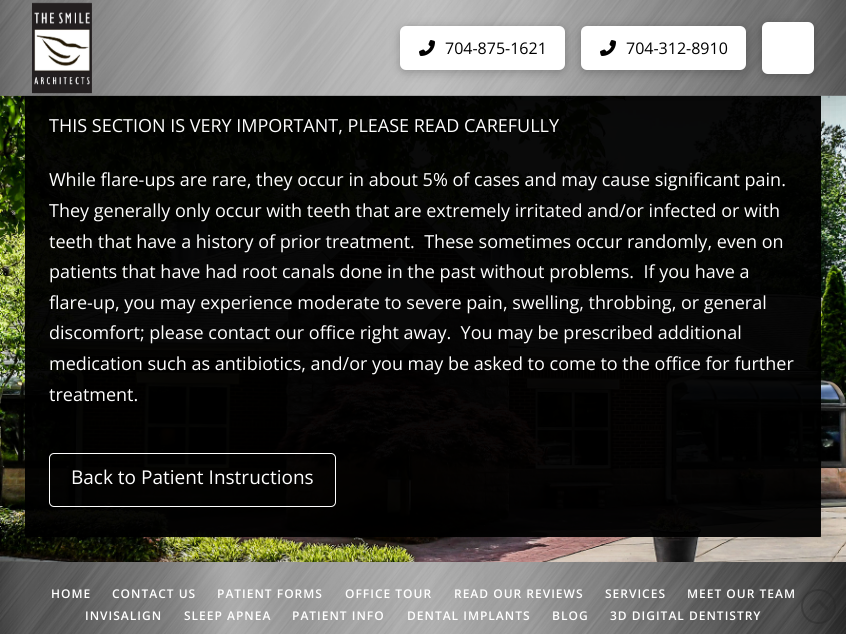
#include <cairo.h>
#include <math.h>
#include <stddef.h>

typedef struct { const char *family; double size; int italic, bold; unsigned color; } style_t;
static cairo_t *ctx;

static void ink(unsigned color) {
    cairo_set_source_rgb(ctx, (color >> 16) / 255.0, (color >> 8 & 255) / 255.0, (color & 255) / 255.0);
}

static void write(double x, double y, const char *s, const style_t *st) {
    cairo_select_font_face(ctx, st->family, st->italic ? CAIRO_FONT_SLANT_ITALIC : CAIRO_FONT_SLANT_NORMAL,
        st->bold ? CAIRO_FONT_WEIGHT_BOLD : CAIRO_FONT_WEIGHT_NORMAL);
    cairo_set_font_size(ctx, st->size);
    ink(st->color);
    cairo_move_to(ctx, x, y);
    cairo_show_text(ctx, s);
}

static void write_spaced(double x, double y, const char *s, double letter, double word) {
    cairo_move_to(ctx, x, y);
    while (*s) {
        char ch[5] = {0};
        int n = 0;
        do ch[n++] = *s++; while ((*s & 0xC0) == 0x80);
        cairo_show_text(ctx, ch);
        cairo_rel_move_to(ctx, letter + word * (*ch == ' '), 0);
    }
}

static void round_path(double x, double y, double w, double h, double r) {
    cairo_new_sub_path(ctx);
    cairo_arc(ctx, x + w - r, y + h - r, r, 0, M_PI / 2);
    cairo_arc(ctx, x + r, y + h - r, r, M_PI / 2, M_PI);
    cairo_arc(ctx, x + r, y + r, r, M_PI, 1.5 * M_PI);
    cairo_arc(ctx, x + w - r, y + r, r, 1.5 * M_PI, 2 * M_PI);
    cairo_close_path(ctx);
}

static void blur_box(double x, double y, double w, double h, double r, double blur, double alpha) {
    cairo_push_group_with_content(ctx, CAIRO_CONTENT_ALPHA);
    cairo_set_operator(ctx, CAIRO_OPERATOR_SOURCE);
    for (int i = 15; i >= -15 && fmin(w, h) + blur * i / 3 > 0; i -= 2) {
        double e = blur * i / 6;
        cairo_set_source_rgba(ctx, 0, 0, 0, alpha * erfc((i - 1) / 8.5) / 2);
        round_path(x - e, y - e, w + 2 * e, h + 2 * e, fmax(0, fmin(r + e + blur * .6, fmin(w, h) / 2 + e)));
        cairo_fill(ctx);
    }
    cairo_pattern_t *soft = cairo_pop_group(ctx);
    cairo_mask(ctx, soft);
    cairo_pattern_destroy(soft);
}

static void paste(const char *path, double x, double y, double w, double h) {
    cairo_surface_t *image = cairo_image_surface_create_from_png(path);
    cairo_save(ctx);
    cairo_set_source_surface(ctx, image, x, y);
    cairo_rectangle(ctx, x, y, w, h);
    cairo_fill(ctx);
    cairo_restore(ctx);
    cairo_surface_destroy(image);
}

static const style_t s1 = {"Open Sans", 16, 0, 0, 0x000000};
static const style_t s2 = {"Open Sans", 18, 0, 0, 0xffffff};
static const style_t s3 = {"Open Sans", 19, 0, 0, 0xffffff};

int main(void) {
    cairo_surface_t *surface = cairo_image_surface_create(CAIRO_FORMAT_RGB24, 846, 634);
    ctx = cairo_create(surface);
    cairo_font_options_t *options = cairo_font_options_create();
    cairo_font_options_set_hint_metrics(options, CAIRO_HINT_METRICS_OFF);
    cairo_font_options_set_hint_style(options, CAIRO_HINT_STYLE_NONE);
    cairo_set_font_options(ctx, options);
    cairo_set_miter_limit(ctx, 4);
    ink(0xffffff);
    cairo_paint(ctx);
    paste("pic6.png", 0, 95, 846, 467);
    cairo_save(ctx);
    cairo_set_fill_rule(ctx, CAIRO_FILL_RULE_EVEN_ODD);
    cairo_new_path(ctx);
    cairo_move_to(ctx, 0, 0);
    cairo_line_to(ctx, 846, 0);
    cairo_line_to(ctx, 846, 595);
    cairo_line_to(ctx, 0, 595);
    cairo_close_path(ctx);
    cairo_move_to(ctx, 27, -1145);
    cairo_line_to(ctx, 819, -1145);
    cairo_curve_to(ctx, 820, -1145, 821, -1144, 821, -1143);
    cairo_line_to(ctx, 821, 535);
    cairo_curve_to(ctx, 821, 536, 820, 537, 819, 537);
    cairo_line_to(ctx, 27, 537);
    cairo_curve_to(ctx, 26, 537, 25, 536, 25, 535);
    cairo_line_to(ctx, 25, -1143);
    cairo_curve_to(ctx, 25, -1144, 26, -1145, 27, -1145);
    cairo_close_path(ctx);
    cairo_clip(ctx);
    ink(0x000000);
    blur_box(25, -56, 796, 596, 2, 18, 0.15);
    cairo_restore(ctx);
    cairo_set_source_rgba(ctx, 0, 0, 0, 0.8);
    round_path(25, -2, 796, 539, 2);
    cairo_fill(ctx);
    cairo_rectangle(ctx, 25, 95, 796, 338);
    cairo_fill(ctx);
    ink(0x000000);
    blur_box(0, 2, 846, 96, 0, 16, 0.15);
    paste("pic1.png", 0, 0, 846, 96);
    cairo_set_source_rgba(ctx, 1, 1, 1, 0.21);
    cairo_rectangle(ctx, 0, 0, 846, 96);
    cairo_fill(ctx);
    paste("pic2.png", 32, 2, 60, 92);
    ink(0x000000);
    blur_box(400, 28, 165, 44, 6, 5, 0.25);
    ink(0xffffff);
    round_path(400, 26, 165, 44, 6);
    cairo_fill(ctx);
    paste("pic3.png", 419, 40, 16, 16);
    write(445, 54, "704-875-1621", &s1);
    ink(0x000000);
    blur_box(581, 28, 165, 44, 6, 5, 0.25);
    ink(0xffffff);
    round_path(581, 26, 165, 44, 6);
    cairo_fill(ctx);
    paste("pic3.png", 600, 40, 16, 16);
    write(626, 54, "704-312-8910", &s1);
    ink(0x000000);
    blur_box(762, 24, 52, 52, 6, 5, 0.25);
    ink(0xffffff);
    round_path(762, 22, 52, 52, 6);
    cairo_fill(ctx);
    write(49, 132, "THIS SECTION IS VERY IMPORTANT, PLEASE READ CAREFULLY", &s2);
    write(49, 186, "While flare-ups are rare, they occur in about 5% of cases and may cause significant pain.", &s2);
    write(49, 217, "They generally only occur with teeth that are extremely irritated and/or infected or with", &s2);
    write(49, 248, "teeth that have a history of prior treatment.  These sometimes occur randomly, even on", &s2);
    write(49, 278, "patients that have had root canals done in the past without problems.  If you have a", &s2);
    write(49, 309, "flare-up, you may experience moderate to severe pain, swelling, throbbing, or general", &s2);
    write(49, 339, "discomfort; please contact our office right away.  You may be prescribed additional", &s2);
    write(49, 370, "medication such as antibiotics, and/or you may be asked to come to the office for further", &s2);
    write(49, 401, "treatment.", &s2);
    cairo_set_source_rgba(ctx, 0, 0, 0, 0.8);
    cairo_rectangle(ctx, 25, 433, 796, 104);
    cairo_fill(ctx);
    round_path(49.5, 453.5, 286, 53, 4.5);
    ink(0xffffff);
    cairo_set_line_width(ctx, 1);
    cairo_stroke(ctx);
    write(71, 484, "Back to Patient Instructions", &s3);
    ink(0x000000);
    blur_box(0, 564, 846, 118, 0, 16, 0.15);
    paste("pic4.png", 0, 562, 846, 72);
    cairo_select_font_face(ctx, "Open Sans SemiBold", CAIRO_FONT_SLANT_NORMAL, CAIRO_FONT_WEIGHT_NORMAL);
    cairo_set_font_size(ctx, 12);
    ink(0xffffff);
    write_spaced(51, 598, "HOME", 1, 0);
    write_spaced(112, 598, "CONTACT US", 1, 0);
    write_spaced(217, 598, "PATIENT FORMS", 1, 0);
    write_spaced(345, 598, "OFFICE TOUR", 1, 0);
    write_spaced(454, 598, "READ OUR REVIEWS", 1, 0);
    write_spaced(605, 598, "SERVICES", 1, 0);
    write_spaced(687, 598, "MEET OUR TEAM", 1, 0);
    write_spaced(85, 620, "INVISALIGN", 1, 0);
    write_spaced(184, 620, "SLEEP APNEA", 1, 0);
    write_spaced(292, 620, "PATIENT INFO", 1, 0);
    write_spaced(407, 620, "DENTAL IMPLANTS", 1, 0);
    write_spaced(552, 620, "BLOG", 1, 0);
    write_spaced(610, 620, "3D DIGITAL DENTISTRY", 1, 0);
    cairo_new_path(ctx);
    cairo_arc(ctx, 818.5, 606.5, 16.5, 0, 2 * M_PI);
    cairo_set_source_rgba(ctx, 0.153, 0.153, 0.153, 0.38);
    cairo_set_line_width(ctx, 2);
    cairo_stroke(ctx);
    paste("pic5.png", 810, 599, 18, 11);
    cairo_surface_write_to_png(surface, "screenshot.png");
    cairo_font_options_destroy(options);
    cairo_destroy(ctx);
    cairo_surface_destroy(surface);
    return 0;
}
